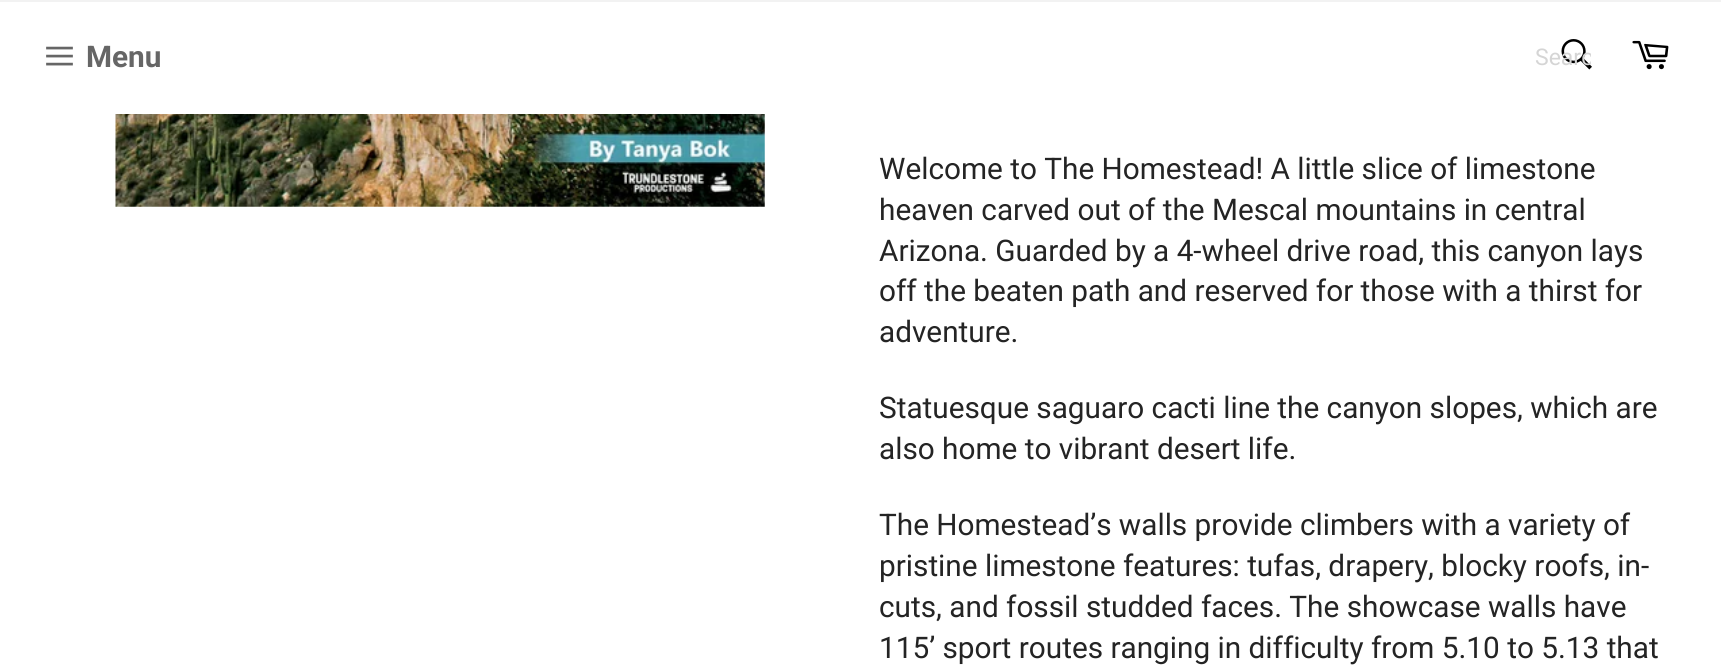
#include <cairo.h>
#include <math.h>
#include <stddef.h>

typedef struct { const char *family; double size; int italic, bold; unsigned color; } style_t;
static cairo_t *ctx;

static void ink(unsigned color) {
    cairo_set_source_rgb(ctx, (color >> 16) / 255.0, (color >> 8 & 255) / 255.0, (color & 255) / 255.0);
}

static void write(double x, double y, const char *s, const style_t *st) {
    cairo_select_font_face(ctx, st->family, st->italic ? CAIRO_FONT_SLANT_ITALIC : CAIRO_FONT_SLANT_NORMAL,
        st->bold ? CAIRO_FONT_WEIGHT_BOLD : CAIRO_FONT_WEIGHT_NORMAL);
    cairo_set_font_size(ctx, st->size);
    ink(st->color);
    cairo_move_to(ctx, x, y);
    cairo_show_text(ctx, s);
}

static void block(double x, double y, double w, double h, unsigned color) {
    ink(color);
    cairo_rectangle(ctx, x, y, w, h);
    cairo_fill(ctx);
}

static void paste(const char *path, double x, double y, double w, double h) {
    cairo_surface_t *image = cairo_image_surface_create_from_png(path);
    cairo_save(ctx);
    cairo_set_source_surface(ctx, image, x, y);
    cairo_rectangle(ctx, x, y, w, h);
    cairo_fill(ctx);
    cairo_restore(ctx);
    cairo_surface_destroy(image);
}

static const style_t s1 = {"Roboto", 29.75, 0, 1, 0x666666};
static const style_t s2 = {"Roboto", 23, 0, 0, 0xd5d5d5};
static const style_t s3 = {"Roboto", 29.75, 0, 0, 0x242424};

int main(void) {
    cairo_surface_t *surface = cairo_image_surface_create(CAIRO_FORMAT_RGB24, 1721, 669);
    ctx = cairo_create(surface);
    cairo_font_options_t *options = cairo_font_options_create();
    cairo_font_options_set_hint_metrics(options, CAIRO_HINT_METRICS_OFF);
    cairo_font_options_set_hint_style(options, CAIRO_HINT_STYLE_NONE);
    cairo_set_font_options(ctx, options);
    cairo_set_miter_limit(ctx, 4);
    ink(0xffffff);
    cairo_paint(ctx);
    block(0, 0, 1721, 2, 0xf2f2f2);
    paste("pic1.png", 46, 46, 27, 20);
    write(86, 67, "Menu", &s1);
    paste("pic2.png", 1561, 39, 31, 31);
    cairo_save(ctx);
    cairo_rectangle(ctx, 1535, 44, 56, 26);
    cairo_clip(ctx);
    write(1535, 65, "Searc", &s2);
    cairo_restore(ctx);
    paste("pic3.png", 1632, 40, 37, 30);
    paste("pic4.png", 115, 114, 650, 93);
    write(879, 179, "Welcome to The Homestead! A little slice of limestone", &s3);
    write(879, 220, "heaven carved out of the Mescal mountains in central", &s3);
    write(879, 261, "Arizona. Guarded by a 4-wheel drive road, this canyon lays", &s3);
    write(879, 301, "off the beaten path and reserved for those with a thirst for", &s3);
    write(879, 342, "adventure.", &s3);
    write(879, 418, "Statuesque saguaro cacti line the canyon slopes, which are", &s3);
    write(879, 459, "also home to vibrant desert life.", &s3);
    write(879, 535, "The Homestead’s walls provide climbers with a variety of", &s3);
    write(879, 576, "pristine limestone features: tufas, drapery, blocky roofs, in-", &s3);
    write(879, 617, "cuts, and fossil studded faces. The showcase walls have", &s3);
    write(879, 658, "115’ sport routes ranging in difficulty from 5.10 to 5.13 that", &s3);
    cairo_surface_write_to_png(surface, "screenshot.png");
    cairo_font_options_destroy(options);
    cairo_destroy(ctx);
    cairo_surface_destroy(surface);
    return 0;
}
